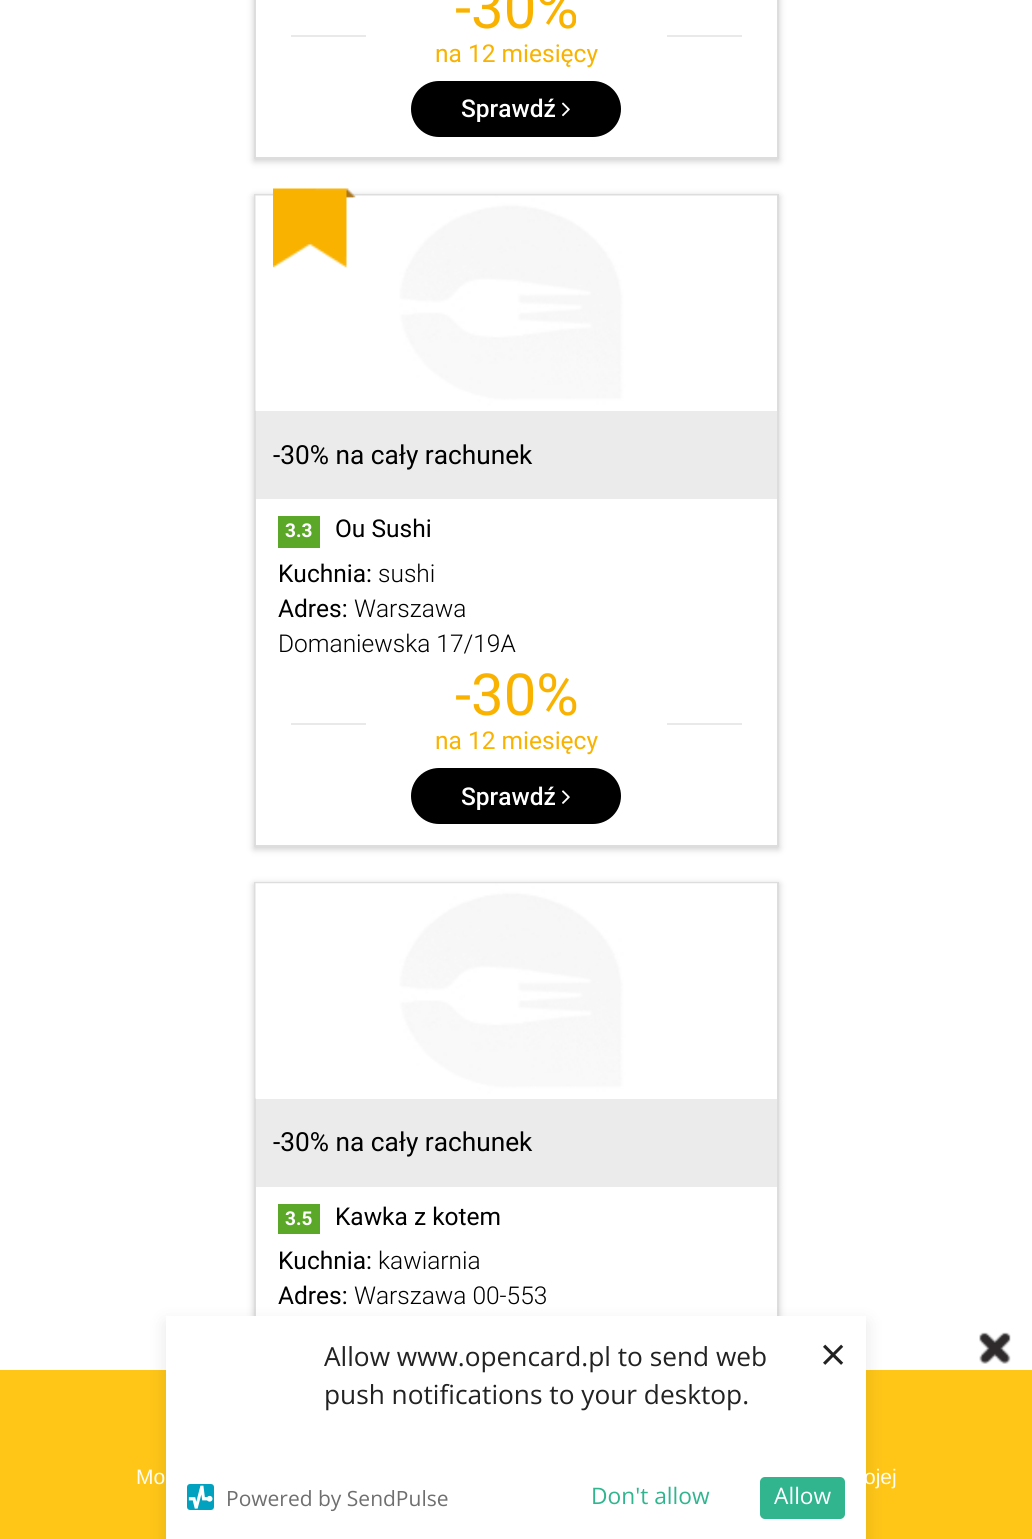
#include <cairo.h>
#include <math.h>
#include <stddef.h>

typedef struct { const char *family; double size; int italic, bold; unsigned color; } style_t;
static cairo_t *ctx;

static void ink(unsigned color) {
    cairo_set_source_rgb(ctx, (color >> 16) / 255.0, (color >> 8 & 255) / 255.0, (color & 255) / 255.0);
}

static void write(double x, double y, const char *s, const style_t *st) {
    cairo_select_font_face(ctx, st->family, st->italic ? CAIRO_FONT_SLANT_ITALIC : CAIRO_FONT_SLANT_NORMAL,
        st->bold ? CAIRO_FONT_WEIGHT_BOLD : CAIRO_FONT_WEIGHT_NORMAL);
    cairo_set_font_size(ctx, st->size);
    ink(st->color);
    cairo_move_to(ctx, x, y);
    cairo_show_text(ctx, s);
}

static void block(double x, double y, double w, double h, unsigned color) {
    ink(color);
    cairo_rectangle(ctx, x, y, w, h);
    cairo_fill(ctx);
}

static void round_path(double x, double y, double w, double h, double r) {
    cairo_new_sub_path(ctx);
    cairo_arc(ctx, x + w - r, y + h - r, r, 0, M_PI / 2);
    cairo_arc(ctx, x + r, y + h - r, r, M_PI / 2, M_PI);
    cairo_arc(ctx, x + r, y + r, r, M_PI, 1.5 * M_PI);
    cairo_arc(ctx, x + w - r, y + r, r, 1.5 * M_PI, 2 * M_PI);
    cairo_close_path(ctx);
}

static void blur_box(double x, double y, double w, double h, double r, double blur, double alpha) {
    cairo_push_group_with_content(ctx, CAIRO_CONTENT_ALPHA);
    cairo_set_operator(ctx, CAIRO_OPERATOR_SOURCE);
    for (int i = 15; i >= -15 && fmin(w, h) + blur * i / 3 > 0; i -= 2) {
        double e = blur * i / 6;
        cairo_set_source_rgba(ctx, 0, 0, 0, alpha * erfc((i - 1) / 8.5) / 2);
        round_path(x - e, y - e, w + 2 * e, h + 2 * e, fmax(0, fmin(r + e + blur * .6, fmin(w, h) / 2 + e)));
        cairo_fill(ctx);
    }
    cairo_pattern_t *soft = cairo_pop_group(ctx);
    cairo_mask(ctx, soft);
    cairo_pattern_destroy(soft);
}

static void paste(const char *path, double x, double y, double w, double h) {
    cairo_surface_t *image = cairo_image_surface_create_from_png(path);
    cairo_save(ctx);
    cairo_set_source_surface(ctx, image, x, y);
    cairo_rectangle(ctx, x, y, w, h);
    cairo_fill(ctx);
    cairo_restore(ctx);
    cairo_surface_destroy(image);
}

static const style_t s1 = {"Roboto", 58, 0, 0, 0xf9b200};
static const style_t s2 = {"Roboto", 24.5, 0, 0, 0xf9b200};
static const style_t s3 = {"Roboto Medium", 24.5, 0, 0, 0xffffff};
static const style_t s4 = {"Roboto", 26.25, 0, 0, 0x000000};
static const style_t s5 = {"Roboto", 19, 0, 1, 0xffffff};
static const style_t s6 = {"Roboto", 24.5, 0, 0, 0x000000};
static const style_t s7 = {"Roboto Light", 24.5, 0, 0, 0x000000};
static const style_t s8 = {"Liberation Sans", 21, 0, 0, 0xfffcf3};
static const style_t s9 = {"Open Sans", 26.25, 0, 0, 0x222222};
static const style_t s10 = {"Open Sans", 21, 0, 0, 0x6f6f6f};
static const style_t s11 = {"Open Sans", 22.75, 0, 0, 0x31b58e};
static const style_t s12 = {"Open Sans", 22.75, 0, 0, 0xffffff};
static const style_t s13 = {"Open Sans", 46, 0, 0, 0x222222};

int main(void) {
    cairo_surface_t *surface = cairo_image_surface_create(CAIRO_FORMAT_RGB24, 1032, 1539);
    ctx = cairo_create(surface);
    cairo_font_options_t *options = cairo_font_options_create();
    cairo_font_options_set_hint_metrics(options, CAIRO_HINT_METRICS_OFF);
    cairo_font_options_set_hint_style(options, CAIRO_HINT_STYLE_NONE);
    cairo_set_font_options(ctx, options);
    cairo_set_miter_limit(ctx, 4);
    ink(0xffffff);
    cairo_paint(ctx);
    ink(0xcccccc);
    blur_box(254, -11, 525, 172, 0, 3.5, 1);
    ink(0xffffff);
    cairo_rectangle(ctx, 255, -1, 523, 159);
    cairo_fill_preserve(ctx);
    ink(0xdddddd);
    cairo_stroke(ctx);
    block(291, 35, 75, 2, 0xe9e9e9);
    write(455, 28, "-30%", &s1);
    write(435, 62, "na 12 miesięcy", &s2);
    block(667, 35, 75, 2, 0xe9e9e9);
    ink(0x000000);
    round_path(411, 81, 210, 56, 28);
    cairo_fill(ctx);
    write(461, 117, "Sprawdź", &s3);
    paste("pic1.png", 562, 102, 8, 15);
    ink(0xcccccc);
    blur_box(254, 196, 525, 653, 0, 3.5, 1);
    block(256, 410, 521, 435, 0xffffff);
    cairo_rectangle(ctx, 255, 195, 523, 651);
    ink(0xdddddd);
    cairo_stroke(ctx);
    paste("pic3.png", 255, 195, 522, 216);
    paste("pic2.png", 273, 188, 83, 80);
    block(256, 411, 521, 88, 0xebebeb);
    write(273, 464, "-30% na cały rachunek", &s4);
    block(278, 516, 42, 32, 0x5ba829);
    write(285, 537, "3.3", &s5);
    write(335, 537, "Ou Sushi", &s6);
    write(278, 582, "Kuchnia:", &s6);
    write(378, 582, "sushi", &s7);
    write(278, 617, "Adres:", &s6);
    write(354, 617, "Warszawa", &s7);
    write(278, 652, "Domaniewska 17/19A", &s7);
    block(291, 723, 75, 2, 0xe9e9e9);
    write(455, 715, "-30%", &s1);
    write(435, 749, "na 12 miesięcy", &s2);
    block(667, 723, 75, 2, 0xe9e9e9);
    ink(0x000000);
    round_path(411, 768, 210, 56, 28);
    cairo_fill(ctx);
    write(461, 805, "Sprawdź", &s3);
    paste("pic4.png", 562, 790, 8, 14);
    ink(0xcccccc);
    blur_box(254, 884, 525, 651, 0, 3.5, 1);
    block(256, 1098, 521, 218, 0xffffff);
    cairo_rectangle(ctx, 255, 883, 523, 649);
    ink(0xdddddd);
    cairo_stroke(ctx);
    paste("pic5.png", 255, 883, 522, 216);
    block(256, 1099, 521, 88, 0xebebeb);
    write(273, 1151, "-30% na cały rachunek", &s4);
    block(278, 1204, 42, 30, 0x5ba829);
    write(285, 1225, "3.5", &s5);
    write(335, 1225, "Kawka z kotem", &s6);
    write(278, 1269, "Kuchnia:", &s6);
    write(378, 1269, "kawiarnia", &s7);
    write(278, 1304, "Adres:", &s6);
    write(354, 1304, "Warszawa 00-553", &s7);
    cairo_set_source_rgba(ctx, 1, 0.765, 0.051, 0.95);
    cairo_rectangle(ctx, 0, 1370, 1032, 169);
    cairo_fill(ctx);
    ink(0x000000);
    blur_box(166, 1323, 700, 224, 0, 9, 0.1);
    write(864, 1484, "ojej", &s8);
    block(166, 1316, 700, 223, 0xffffff);
    write(324, 1366, "Allow www.opencard.pl to send web", &s9);
    write(324, 1404, "push notifications to your desktop.", &s9);
    paste("pic6.png", 187, 1484, 27, 26);
    write(226, 1506, "Powered by SendPulse", &s10);
    write(591, 1504, "Don't allow", &s11);
    round_path(760, 1477, 85, 42, 5);
    cairo_fill(ctx);
    write(774, 1504, "Allow", &s12);
    write(820, 1371, "×", &s13);
    paste("pic7.png", 979, 1332, 32, 32);
    write(136, 1484, "Mo", &s8);
    cairo_surface_write_to_png(surface, "screenshot.png");
    cairo_font_options_destroy(options);
    cairo_destroy(ctx);
    cairo_surface_destroy(surface);
    return 0;
}
